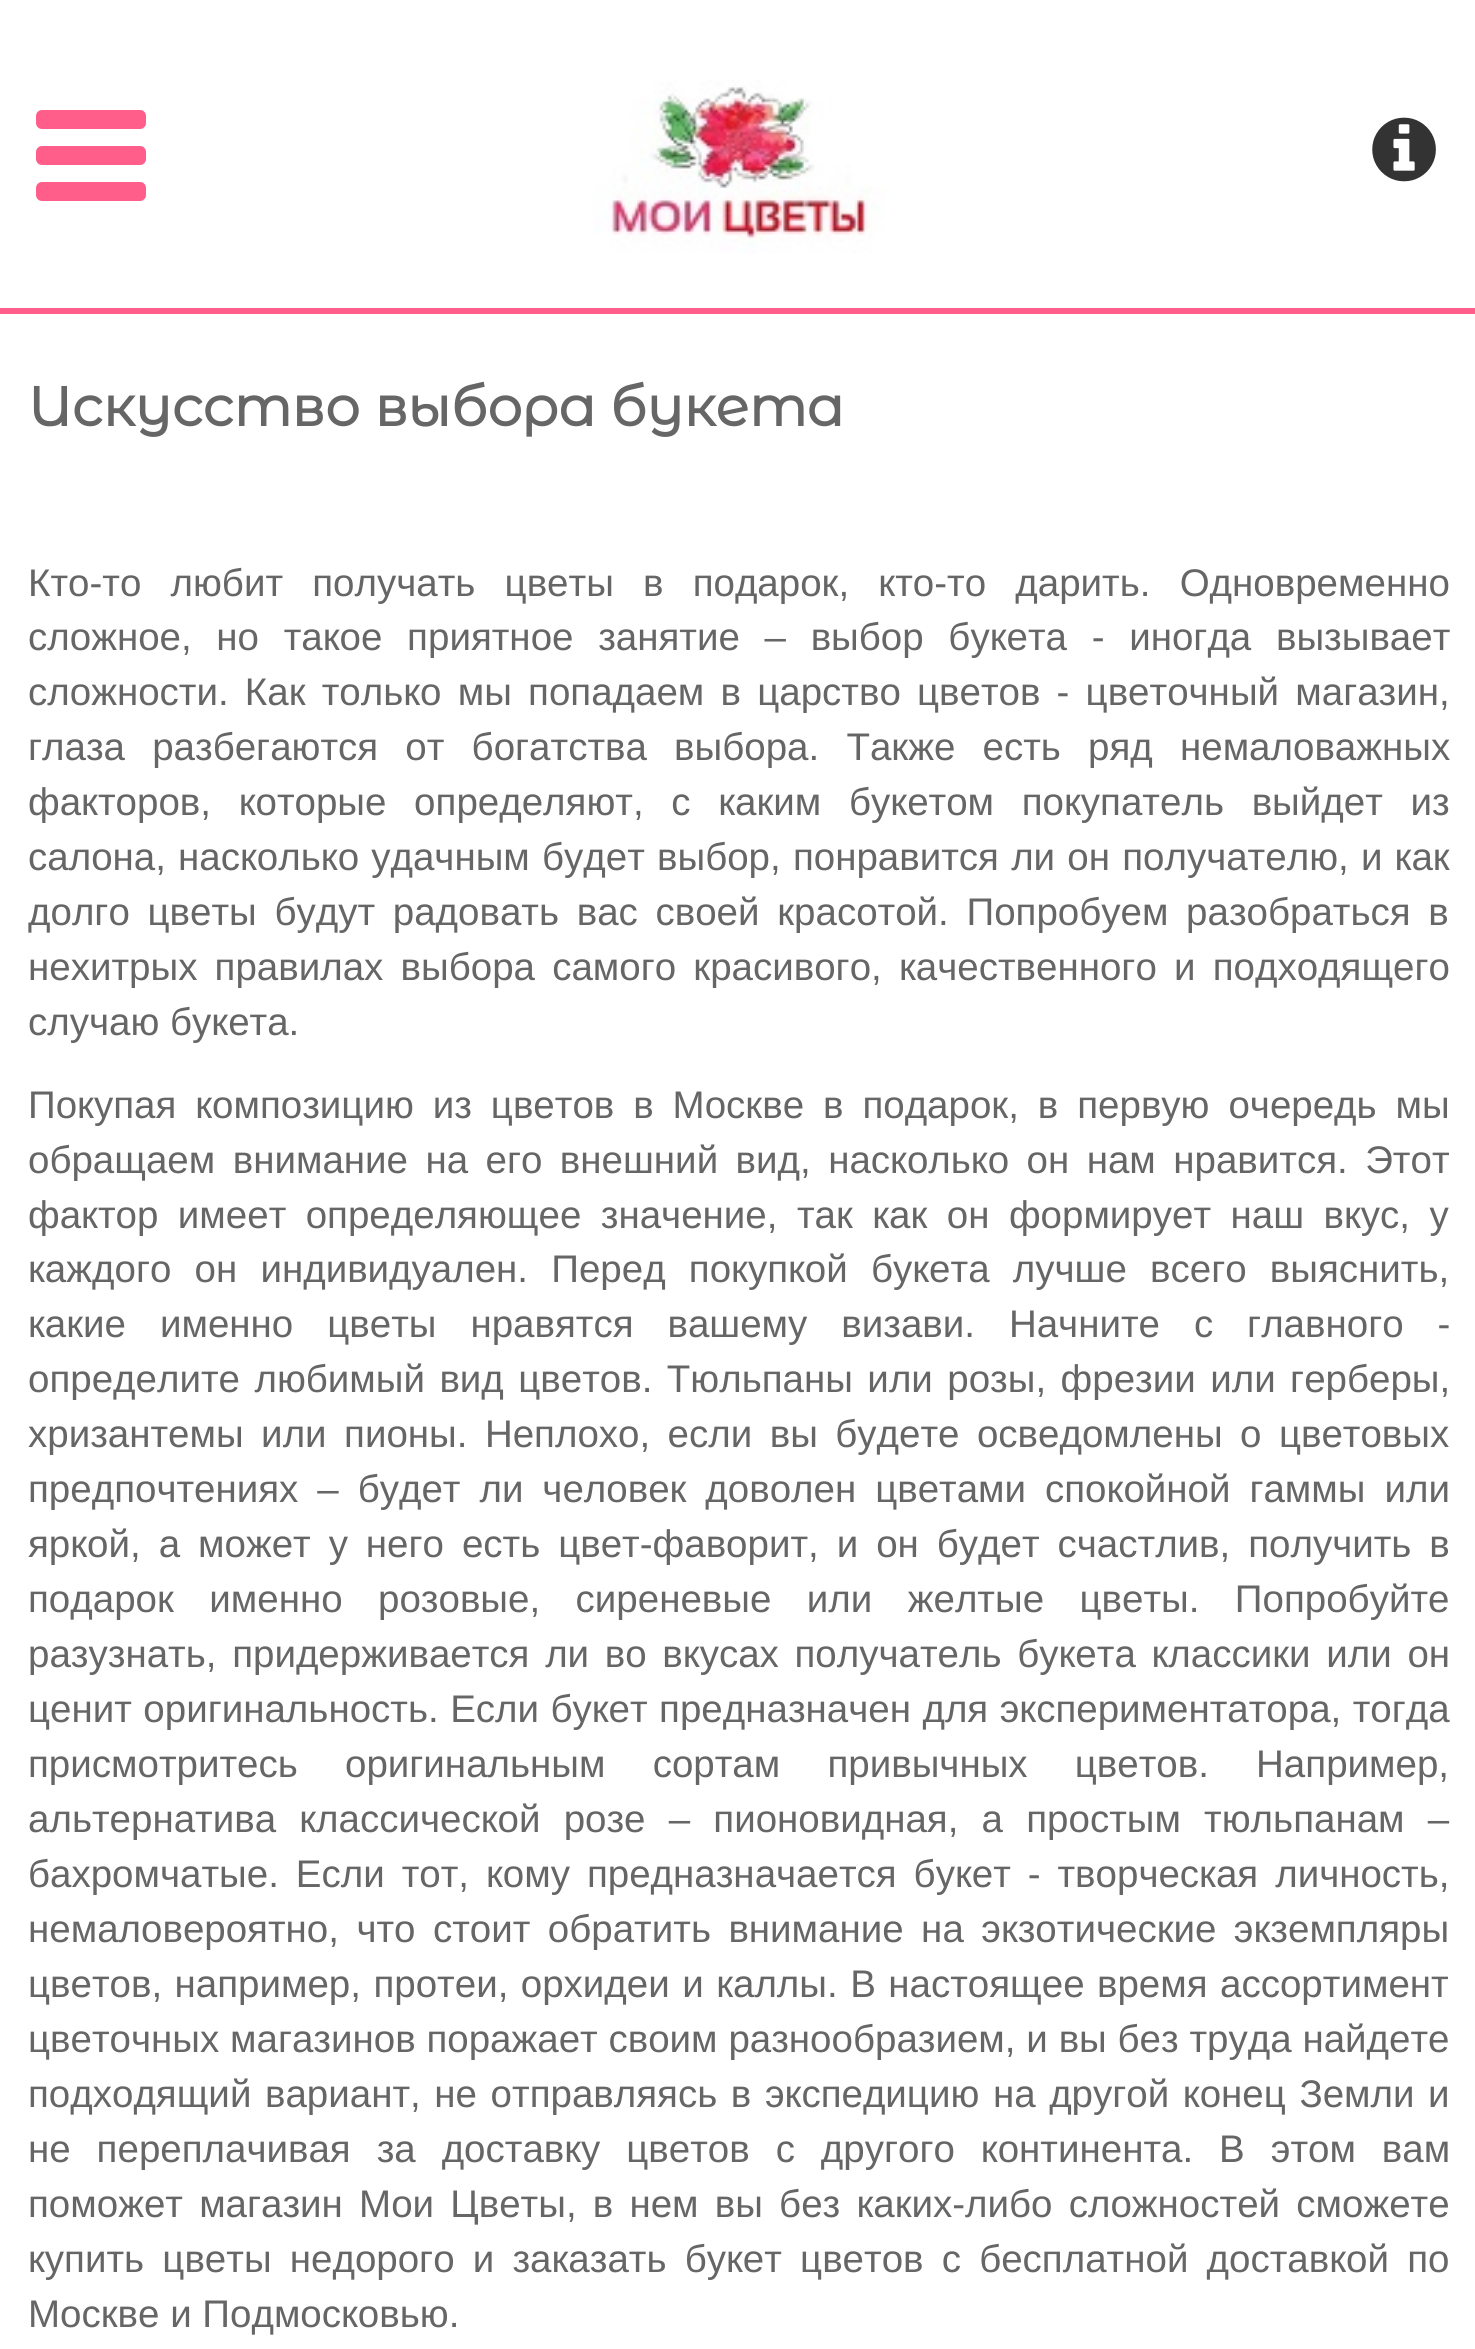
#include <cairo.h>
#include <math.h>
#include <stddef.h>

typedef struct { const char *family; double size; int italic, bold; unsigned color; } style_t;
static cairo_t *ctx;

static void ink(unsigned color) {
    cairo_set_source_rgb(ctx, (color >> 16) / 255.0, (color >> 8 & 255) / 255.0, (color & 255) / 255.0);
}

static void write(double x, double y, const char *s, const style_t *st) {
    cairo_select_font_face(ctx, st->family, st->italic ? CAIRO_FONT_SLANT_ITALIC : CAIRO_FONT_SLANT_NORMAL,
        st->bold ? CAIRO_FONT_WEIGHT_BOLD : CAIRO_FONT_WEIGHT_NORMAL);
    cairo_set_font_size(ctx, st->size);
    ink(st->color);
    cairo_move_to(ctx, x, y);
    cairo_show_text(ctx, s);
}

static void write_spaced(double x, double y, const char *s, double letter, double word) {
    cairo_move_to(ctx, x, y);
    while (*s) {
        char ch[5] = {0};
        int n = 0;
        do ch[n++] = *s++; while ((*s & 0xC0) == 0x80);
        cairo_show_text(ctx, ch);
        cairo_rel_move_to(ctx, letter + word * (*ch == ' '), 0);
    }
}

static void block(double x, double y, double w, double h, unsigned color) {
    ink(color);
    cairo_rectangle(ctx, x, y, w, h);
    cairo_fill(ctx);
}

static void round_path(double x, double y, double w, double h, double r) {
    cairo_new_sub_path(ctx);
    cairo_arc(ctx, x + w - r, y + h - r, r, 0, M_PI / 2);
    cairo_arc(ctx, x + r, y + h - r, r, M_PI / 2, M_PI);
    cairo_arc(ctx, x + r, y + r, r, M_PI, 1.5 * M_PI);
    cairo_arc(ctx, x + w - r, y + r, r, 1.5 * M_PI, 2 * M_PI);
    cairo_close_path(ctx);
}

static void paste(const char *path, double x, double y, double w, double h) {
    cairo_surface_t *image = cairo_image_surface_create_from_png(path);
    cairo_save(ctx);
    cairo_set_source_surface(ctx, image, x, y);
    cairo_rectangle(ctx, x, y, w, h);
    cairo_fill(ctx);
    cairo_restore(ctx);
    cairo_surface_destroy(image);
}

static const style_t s1 = {"Montserrat Alternates", 55, 0, 1, 0x666666};
static const style_t s2 = {"Liberation Sans", 38.5, 0, 0, 0x666666};

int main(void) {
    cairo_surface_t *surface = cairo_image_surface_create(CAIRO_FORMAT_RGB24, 1475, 2349);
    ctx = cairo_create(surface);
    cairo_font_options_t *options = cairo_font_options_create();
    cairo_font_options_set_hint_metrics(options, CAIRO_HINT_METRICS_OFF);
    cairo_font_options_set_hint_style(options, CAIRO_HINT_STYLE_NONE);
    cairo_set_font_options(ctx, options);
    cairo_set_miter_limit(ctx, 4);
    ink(0xffffff);
    cairo_paint(ctx);
    ink(0xff5e8a);
    round_path(36, 110, 110, 19, 6);
    cairo_fill(ctx);
    round_path(36, 146, 110, 19, 6);
    cairo_fill(ctx);
    round_path(36, 182, 110, 19, 6);
    cairo_fill(ctx);
    paste("pic1.png", 593, 80, 292, 173);
    paste("pic2.png", 1372, 117, 64, 65);
    block(0, 308, 1475, 6, 0xff5e8a);
    write(28, 426, "Искусство выбора букета", &s1);
    cairo_select_font_face(ctx, "Liberation Sans", CAIRO_FONT_SLANT_NORMAL, CAIRO_FONT_WEIGHT_NORMAL);
    cairo_set_font_size(ctx, 38.5);
    write_spaced(28, 596, "Кто-то любит получать цветы в подарок, кто-то дарить. Одновременно", 0, 18.5);
    write_spaced(28, 650, "сложное, но такое приятное занятие – выбор букета - иногда вызывает", 0, 14);
    write_spaced(28, 705, "сложности. Как только мы попадаем в царство цветов - цветочный магазин,", 0, 5.5);
    write_spaced(28, 760, "глаза разбегаются от богатства выбора. Также есть ряд немаловажных", 0, 16.5);
    write_spaced(28, 815, "факторов, которые определяют, с каким букетом покупатель выйдет из", 0, 17);
    write_spaced(28, 870, "салона, насколько удачным будет выбор, понравится ли он получателю, и как", 0, 1.5);
    write_spaced(28, 925, "долго цветы будут радовать вас своей красотой. Попробуем разобраться в", 0, 7);
    write_spaced(28, 980, "нехитрых правилах выбора самого красивого, качественного и подходящего", 0, 6.5);
    write(28, 1035, "случаю букета.", &s2);
    write_spaced(28, 1118, "Покупая композицию из цветов в Москве в подарок, в первую очередь мы", 0, 8.25);
    write_spaced(28, 1173, "обращаем внимание на его внешний вид, насколько он нам нравится. Этот", 0, 6.75);
    write_spaced(28, 1228, "фактор имеет определяющее значение, так как он формирует наш вкус, у", 0, 8.75);
    write_spaced(28, 1282, "каждого он индивидуален. Перед покупкой букета лучше всего выяснить,", 0, 12.5);
    write_spaced(28, 1337, "какие именно цветы нравятся вашему визави. Начните с главного -", 0, 23.25);
    write_spaced(28, 1392, "определите любимый вид цветов. Тюльпаны или розы, фрезии или герберы,", 0, 3.75);
    write_spaced(28, 1447, "хризантемы или пионы. Неплохо, если вы будете осведомлены о цветовых", 0, 6.75);
    write_spaced(28, 1502, "предпочтениях – будет ли человек доволен цветами спокойной гаммы или", 0, 8.25);
    write_spaced(28, 1557, "яркой, а может у него есть цвет-фаворит, и он будет счастлив, получить в", 0, 7.25);
    write_spaced(28, 1612, "подарок именно розовые, сиреневые или желтые цветы. Попробуйте", 0, 24.75);
    write_spaced(28, 1667, "разузнать, придерживается ли во вкусах получатель букета классики или он", 0, 5);
    write_spaced(28, 1722, "ценит оригинальность. Если букет предназначен для экспериментатора, тогда", 0, 0.75);
    write_spaced(28, 1777, "присмотритесь оригинальным сортам привычных цветов. Например,", 0, 36.5);
    write_spaced(28, 1832, "альтернатива классической розе – пионовидная, а простым тюльпанам –", 0, 12.5);
    write_spaced(28, 1887, "бахромчатые. Если тот, кому предназначается букет - творческая личность,", 0, 6.25);
    write_spaced(28, 1942, "немаловероятно, что стоит обратить внимание на экзотические экземпляры", 0, 6.75);
    write_spaced(28, 1997, "цветов, например, протеи, орхидеи и каллы. В настоящее время ассортимент", 0, 1.75);
    write_spaced(28, 2052, "цветочных магазинов поражает своим разнообразием, и вы без труда найдете", 0, 0.1);
    write_spaced(28, 2107, "подходящий вариант, не отправляясь в экспедицию на другой конец Земли и", 0, 2.9);
    write_spaced(28, 2162, "не переплачивая за доставку цветов с другого континента. В этом вам", 0, 15.25);
    write_spaced(28, 2217, "поможет магазин Мои Цветы, в нем вы без каких-либо сложностей сможете", 0, 5.5);
    write_spaced(28, 2272, "купить цветы недорого и заказать букет цветов с бесплатной доставкой по", 0, 7.5);
    write(28, 2327, "Москве и Подмосковью.", &s2);
    cairo_surface_write_to_png(surface, "screenshot.png");
    cairo_font_options_destroy(options);
    cairo_destroy(ctx);
    cairo_surface_destroy(surface);
    return 0;
}
